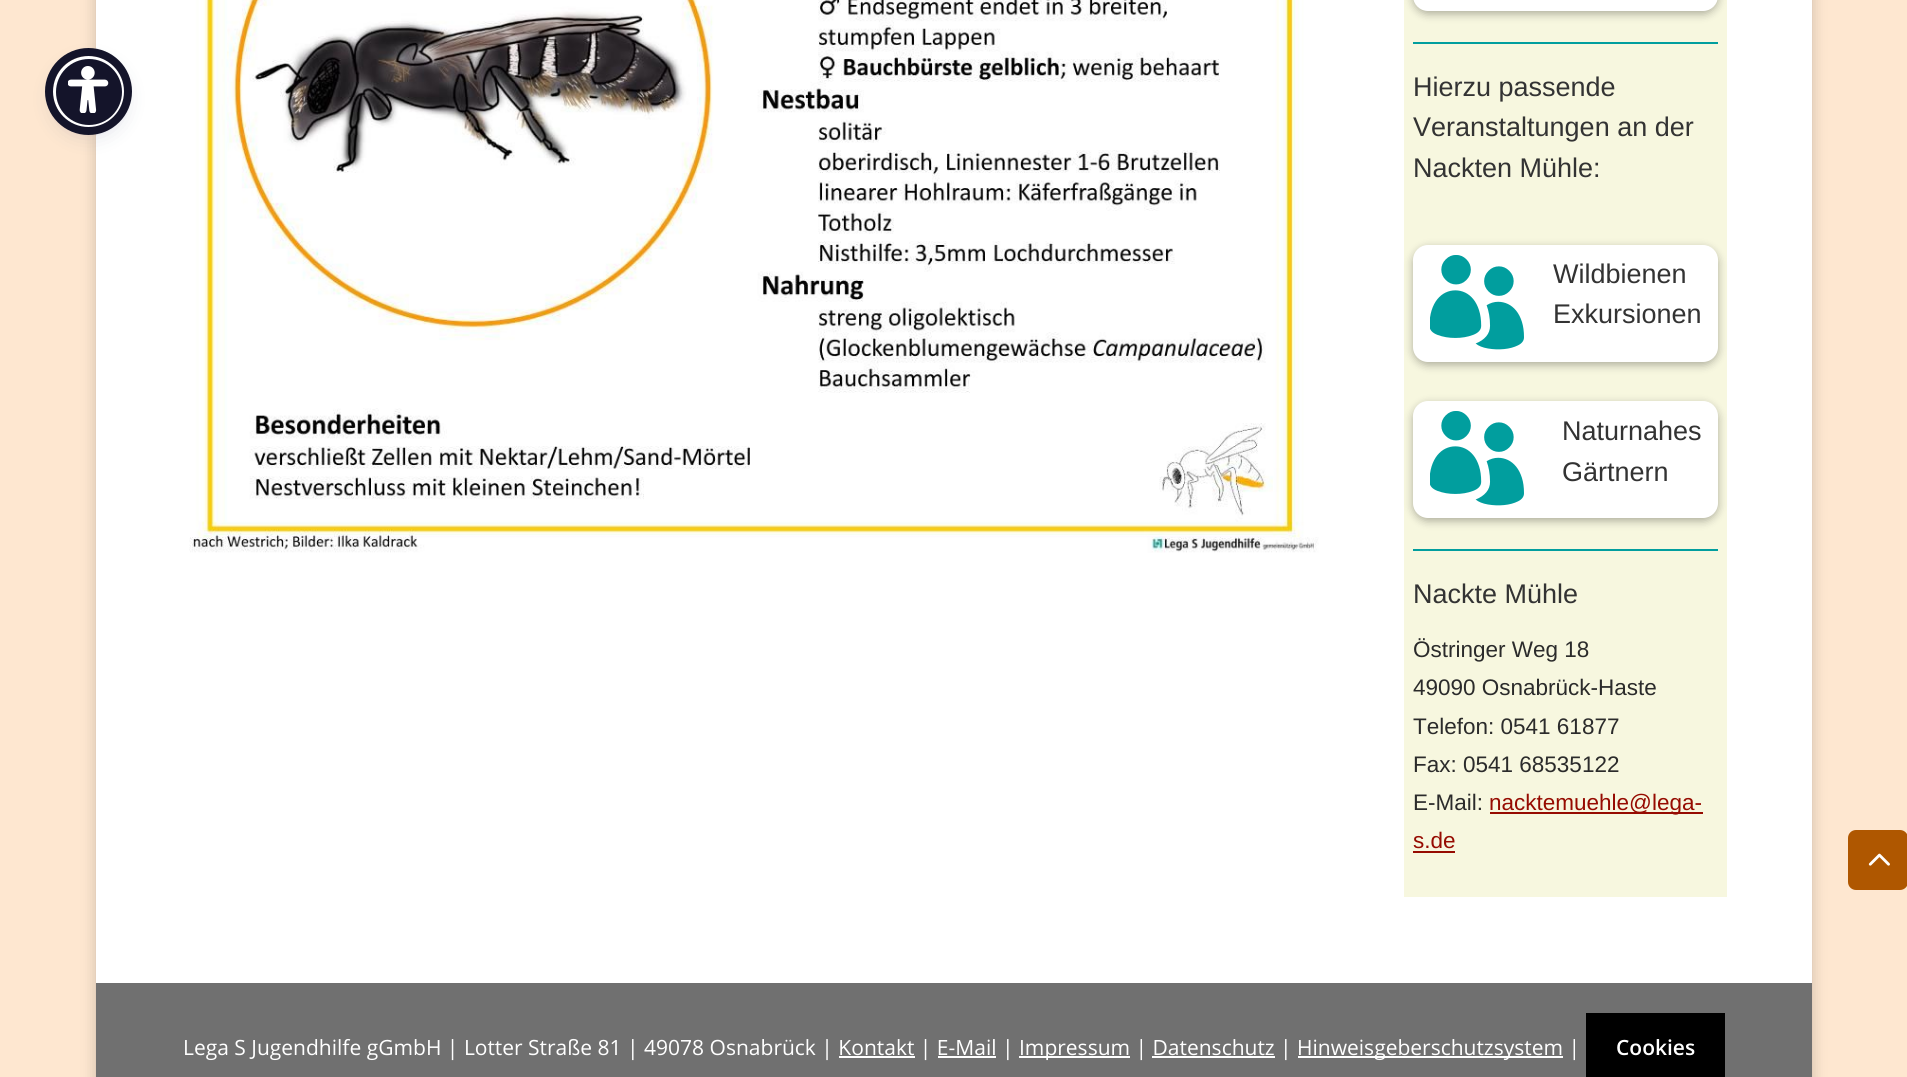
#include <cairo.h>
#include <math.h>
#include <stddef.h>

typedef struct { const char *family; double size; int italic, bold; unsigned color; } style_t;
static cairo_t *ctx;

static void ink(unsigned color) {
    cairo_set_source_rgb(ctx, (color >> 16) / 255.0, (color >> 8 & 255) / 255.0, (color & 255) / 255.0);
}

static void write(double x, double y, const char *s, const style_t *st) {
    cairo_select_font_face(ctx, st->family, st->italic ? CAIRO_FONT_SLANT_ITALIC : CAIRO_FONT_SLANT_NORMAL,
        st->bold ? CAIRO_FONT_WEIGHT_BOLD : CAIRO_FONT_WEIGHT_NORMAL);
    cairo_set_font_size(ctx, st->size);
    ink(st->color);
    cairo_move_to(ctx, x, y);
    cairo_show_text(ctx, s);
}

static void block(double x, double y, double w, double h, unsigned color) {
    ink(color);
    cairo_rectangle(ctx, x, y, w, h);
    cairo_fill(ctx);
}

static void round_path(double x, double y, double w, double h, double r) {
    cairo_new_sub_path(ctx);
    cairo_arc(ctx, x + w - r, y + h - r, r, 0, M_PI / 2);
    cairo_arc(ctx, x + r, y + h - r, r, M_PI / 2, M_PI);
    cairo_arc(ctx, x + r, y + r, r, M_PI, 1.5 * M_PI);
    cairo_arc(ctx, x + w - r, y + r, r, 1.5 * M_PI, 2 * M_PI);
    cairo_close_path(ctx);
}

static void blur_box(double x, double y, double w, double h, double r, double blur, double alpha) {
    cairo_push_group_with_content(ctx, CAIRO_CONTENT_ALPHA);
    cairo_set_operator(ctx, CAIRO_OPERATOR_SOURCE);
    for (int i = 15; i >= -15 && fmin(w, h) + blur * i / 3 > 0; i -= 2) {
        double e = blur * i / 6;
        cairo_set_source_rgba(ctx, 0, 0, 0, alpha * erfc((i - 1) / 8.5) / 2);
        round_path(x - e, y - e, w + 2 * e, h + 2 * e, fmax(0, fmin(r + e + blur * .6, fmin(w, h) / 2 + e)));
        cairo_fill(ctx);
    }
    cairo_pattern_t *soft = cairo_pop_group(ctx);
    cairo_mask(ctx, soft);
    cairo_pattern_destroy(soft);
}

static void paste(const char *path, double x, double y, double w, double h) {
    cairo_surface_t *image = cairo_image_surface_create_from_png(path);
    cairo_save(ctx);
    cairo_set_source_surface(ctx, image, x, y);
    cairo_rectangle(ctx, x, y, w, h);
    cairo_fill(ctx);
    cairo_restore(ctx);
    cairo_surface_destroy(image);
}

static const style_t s1 = {"Liberation Sans", 27, 0, 0, 0x333333};
static const style_t s2 = {"Liberation Sans", 22.5, 0, 0, 0x2b2b2b};
static const style_t s3 = {"Liberation Sans", 22.5, 0, 0, 0x960b01};
static const style_t s4 = {"Open Sans", 21, 0, 0, 0xffffff};
static const style_t s5 = {"Open Sans SemiBold", 21, 0, 0, 0xffffff};

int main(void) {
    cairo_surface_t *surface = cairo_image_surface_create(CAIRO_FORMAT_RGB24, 1907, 1077);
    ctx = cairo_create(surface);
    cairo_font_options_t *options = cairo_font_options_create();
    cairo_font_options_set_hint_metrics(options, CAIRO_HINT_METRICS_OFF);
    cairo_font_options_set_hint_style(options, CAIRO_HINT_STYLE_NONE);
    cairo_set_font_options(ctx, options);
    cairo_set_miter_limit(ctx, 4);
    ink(0xfee7d0);
    cairo_paint(ctx);
    ink(0x000000);
    blur_box(96, -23, 1716, 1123, 0, 7.5, 0.2);
    block(96, 0, 1716, 983, 0xffffff);
    ink(0x5d6494);
    blur_box(53, 59, 72, 72, 36, 3, 0.2);
    ink(0x252c61);
    blur_box(53, 63, 72, 72, 36, 11, 0.15);
    ink(0x14142a);
    cairo_arc(ctx, 89, 92, 34.5, 0, 2 * M_PI);
    cairo_fill_preserve(ctx);
    ink(0xffffff);
    cairo_set_line_width(ctx, 3);
    cairo_stroke(ctx);
    cairo_arc(ctx, 88.5, 91.5, 39.5, 0, 2 * M_PI);
    ink(0x14142a);
    cairo_set_line_width(ctx, 8);
    cairo_stroke(ctx);
    paste("pic1.png", 68, 66, 41, 47);
    paste("pic2.png", 189, 0, 1130, 553);
    block(1404, 0, 323, 897, 0xf7f7df);
    ink(0x000000);
    blur_box(1413, -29, 305, 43, 15, 4.5, 0.3);
    ink(0xffffff);
    round_path(1413, -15, 305, 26, 15);
    cairo_fill(ctx);
    block(1413, 42, 305, 2, 0x019e9e);
    write(1413, 96, "Hierzu passende", &s1);
    write(1413, 136, "Veranstaltungen an der", &s1);
    write(1413, 177, "Nackten Mühle:", &s1);
    ink(0x000000);
    blur_box(1413, 248, 305, 117, 15, 4.5, 0.3);
    ink(0xffffff);
    round_path(1413, 245, 305, 117, 15);
    cairo_fill(ctx);
    paste("pic3.png", 1430, 255, 94, 95);
    write(1553, 283, "Wildbienen", &s1);
    write(1553, 323, "Exkursionen", &s1);
    ink(0x000000);
    blur_box(1413, 404, 305, 117, 15, 4.5, 0.3);
    ink(0xffffff);
    round_path(1413, 401, 305, 117, 15);
    cairo_fill(ctx);
    paste("pic3.png", 1430, 411, 94, 95);
    write(1562, 440, "Naturnahes", &s1);
    write(1562, 481, "Gärtnern", &s1);
    block(1413, 549, 305, 2, 0x019e9e);
    write(1413, 603, "Nackte Mühle", &s1);
    write(1413, 657, "Östringer Weg 18", &s2);
    write(1413, 695, "49090 Osnabrück-Haste", &s2);
    write(1413, 734, "Telefon: 0541 61877", &s2);
    write(1413, 772, "Fax: 0541 68535122", &s2);
    write(1413, 810, "E-Mail:", &s2);
    block(1490, 812, 213, 2, 0x960b01);
    write(1489, 810, "nacktemuehle@lega-", &s3);
    write(1413, 848, "s.de", &s3);
    block(1413, 851, 42, 2, 0x960b01);
    block(96, 983, 1716, 94, 0x707070);
    write(183, 1055, "Lega S Jugendhilfe gGmbH | Lotter Straße 81 | 49078 Osnabrück | Kontakt | E-Mail |", &s4);
    block(1019, 1056, 111, 2, 0xffffff);
    write(1019, 1055, "Impressum | Datenschutz |", &s4);
    block(1298, 1056, 265, 2, 0xffffff);
    write(1297, 1055, "Hinweisgeberschutzsystem |", &s4);
    block(1586, 1013, 139, 64, 0x000000);
    write(1616, 1055, "Cookies", &s5);
    block(839, 1056, 76, 2, 0xffffff);
    block(938, 1056, 58, 2, 0xffffff);
    block(1152, 1056, 123, 2, 0xffffff);
    ink(0xaf5700);
    round_path(1848, 830, 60, 60, 8);
    cairo_fill(ctx);
    paste("pic4.png", 1868, 853, 22, 13);
    cairo_surface_write_to_png(surface, "screenshot.png");
    cairo_font_options_destroy(options);
    cairo_destroy(ctx);
    cairo_surface_destroy(surface);
    return 0;
}
